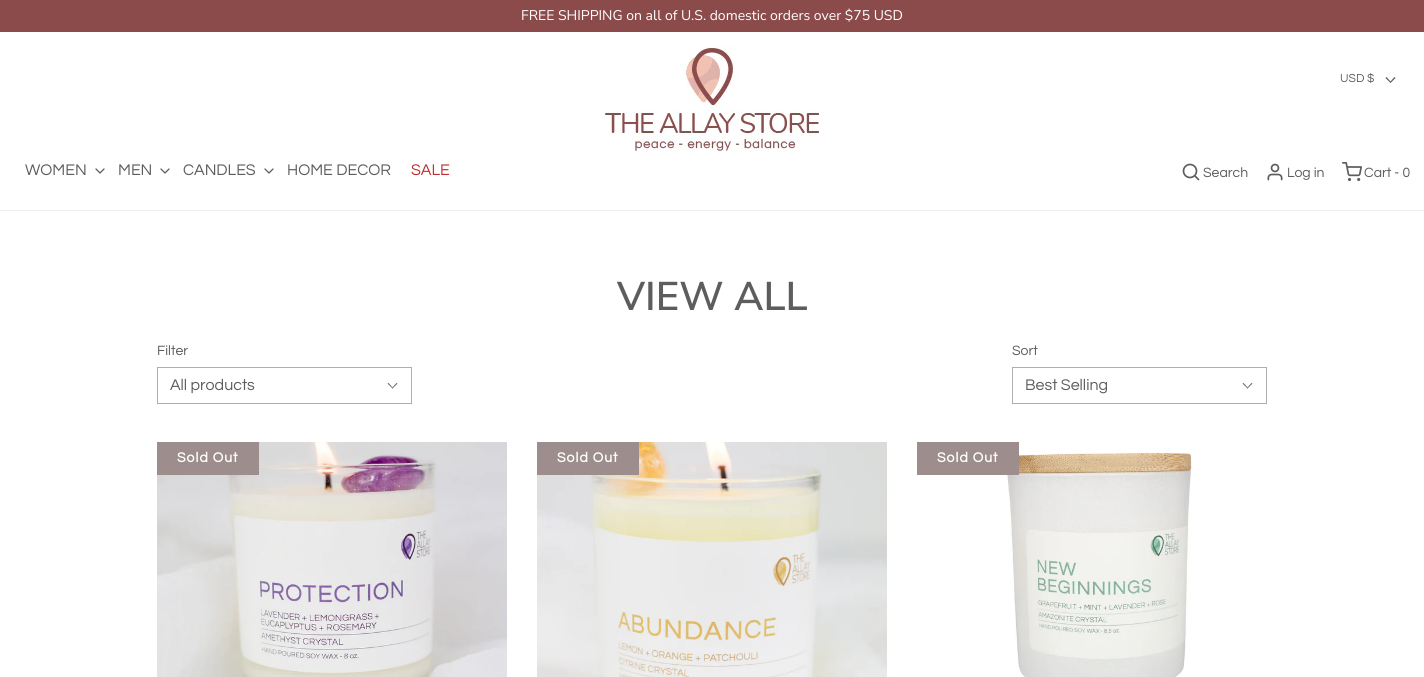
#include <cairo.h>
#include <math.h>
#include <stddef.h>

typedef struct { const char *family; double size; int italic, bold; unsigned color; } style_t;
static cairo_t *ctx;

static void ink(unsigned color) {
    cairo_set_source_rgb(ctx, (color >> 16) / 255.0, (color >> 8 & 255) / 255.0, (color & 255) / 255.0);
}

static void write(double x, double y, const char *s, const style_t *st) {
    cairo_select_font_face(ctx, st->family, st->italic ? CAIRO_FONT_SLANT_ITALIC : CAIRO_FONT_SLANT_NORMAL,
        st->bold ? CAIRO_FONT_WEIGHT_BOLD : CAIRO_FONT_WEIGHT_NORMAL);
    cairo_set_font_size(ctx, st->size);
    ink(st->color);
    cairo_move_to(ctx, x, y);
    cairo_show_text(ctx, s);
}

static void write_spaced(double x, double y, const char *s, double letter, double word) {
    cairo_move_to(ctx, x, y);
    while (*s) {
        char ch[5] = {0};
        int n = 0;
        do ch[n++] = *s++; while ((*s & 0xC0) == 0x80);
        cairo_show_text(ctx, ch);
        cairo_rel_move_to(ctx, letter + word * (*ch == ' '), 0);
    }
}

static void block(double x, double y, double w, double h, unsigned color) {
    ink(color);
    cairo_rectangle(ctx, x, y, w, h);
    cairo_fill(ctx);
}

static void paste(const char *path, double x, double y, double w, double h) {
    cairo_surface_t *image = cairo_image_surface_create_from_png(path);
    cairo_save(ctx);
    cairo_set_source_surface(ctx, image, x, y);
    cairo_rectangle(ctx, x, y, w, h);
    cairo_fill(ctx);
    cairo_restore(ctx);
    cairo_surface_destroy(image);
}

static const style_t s1 = {"Nunito Sans", 14, 0, 0, 0xffffff};
static const style_t s2 = {"Questrial", 16, 0, 0, 0x5d5d5d};
static const style_t s3 = {"Questrial", 16, 0, 0, 0xbd3030};
static const style_t s4 = {"Questrial", 12, 0, 0, 0x5d5d5d};
static const style_t s5 = {"Questrial", 14, 0, 0, 0x5d5d5d};
static const style_t s6 = {"Nunito Sans SemiBold", 40, 0, 0, 0x5d5d5d};

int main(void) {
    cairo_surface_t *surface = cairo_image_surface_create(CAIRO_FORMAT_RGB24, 1424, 677);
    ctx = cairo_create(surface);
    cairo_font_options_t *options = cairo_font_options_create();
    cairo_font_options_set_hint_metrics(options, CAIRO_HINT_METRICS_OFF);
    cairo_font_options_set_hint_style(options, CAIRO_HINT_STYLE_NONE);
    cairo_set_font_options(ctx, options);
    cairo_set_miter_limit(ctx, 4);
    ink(0xffffff);
    cairo_paint(ctx);
    block(0, 0, 1424, 32, 0x8b4b4b);
    write(521, 20, "FREE SHIPPING on all of U.S. domestic orders over $75 USD", &s1);
    block(0, 210, 1424, 1, 0xefefef);
    write(25, 175, "WOMEN", &s2);
    cairo_new_path(ctx);
    cairo_move_to(ctx, 96, 169);
    cairo_line_to(ctx, 100, 173);
    cairo_line_to(ctx, 104, 169);
    cairo_set_line_width(ctx, 1.3);
    cairo_set_line_cap(ctx, CAIRO_LINE_CAP_ROUND);
    cairo_set_line_join(ctx, CAIRO_LINE_JOIN_ROUND);
    cairo_stroke(ctx);
    write(118, 175, "MEN", &s2);
    cairo_new_path(ctx);
    cairo_move_to(ctx, 161, 169);
    cairo_line_to(ctx, 165, 173);
    cairo_line_to(ctx, 169, 169);
    cairo_stroke(ctx);
    write(183, 175, "CANDLES", &s2);
    cairo_new_path(ctx);
    cairo_move_to(ctx, 265, 169);
    cairo_line_to(ctx, 269, 173);
    cairo_line_to(ctx, 273, 169);
    cairo_stroke(ctx);
    write(287, 175, "HOME DECOR", &s2);
    write(411, 175, "SALE", &s3);
    paste("pic1.png", 602, 46, 220, 106);
    write(1340, 82, "USD $", &s4);
    cairo_new_path(ctx);
    cairo_move_to(ctx, 1394.5, 77);
    cairo_line_to(ctx, 1395.5, 78);
    cairo_line_to(ctx, 1390.5, 83);
    cairo_line_to(ctx, 1390, 82);
    cairo_close_path(ctx);
    cairo_fill(ctx);
    cairo_new_path(ctx);
    cairo_move_to(ctx, 1386.5, 77);
    cairo_line_to(ctx, 1391, 82);
    cairo_line_to(ctx, 1390.5, 83);
    cairo_line_to(ctx, 1385.5, 78);
    cairo_close_path(ctx);
    cairo_fill(ctx);
    cairo_arc(ctx, 1190, 171, 6.5, 0, 2 * M_PI);
    cairo_set_line_width(ctx, 1.7);
    cairo_set_line_cap(ctx, CAIRO_LINE_CAP_BUTT);
    cairo_set_line_join(ctx, CAIRO_LINE_JOIN_MITER);
    cairo_stroke(ctx);
    cairo_new_path(ctx);
    cairo_move_to(ctx, 1198.5, 179.5);
    cairo_line_to(ctx, 1195, 176);
    cairo_set_line_cap(ctx, CAIRO_LINE_CAP_ROUND);
    cairo_set_line_join(ctx, CAIRO_LINE_JOIN_ROUND);
    cairo_stroke(ctx);
    write(1203, 177, "Search", &s5);
    paste("pic2.png", 1267, 163, 16, 18);
    write(1287, 177, "Log in", &s5);
    paste("pic3.png", 1342, 162, 20, 20);
    write(1364, 177, "Cart - 0", &s5);
    write(617, 310, "VIEW ALL", &s6);
    write(157, 355, "Filter", &s5);
    cairo_rectangle(ctx, 157.5, 367.5, 254, 36);
    ink(0xaeaeae);
    cairo_set_line_width(ctx, 1);
    cairo_set_line_cap(ctx, CAIRO_LINE_CAP_BUTT);
    cairo_set_line_join(ctx, CAIRO_LINE_JOIN_MITER);
    cairo_stroke(ctx);
    write(170, 390, "All products", &s2);
    cairo_new_path(ctx);
    cairo_move_to(ctx, 396.5, 383);
    cairo_line_to(ctx, 397.5, 383.5);
    cairo_line_to(ctx, 392.5, 388.5);
    cairo_line_to(ctx, 392, 388);
    cairo_close_path(ctx);
    cairo_fill(ctx);
    cairo_new_path(ctx);
    cairo_move_to(ctx, 388.5, 383);
    cairo_line_to(ctx, 393, 388);
    cairo_line_to(ctx, 392.5, 388.5);
    cairo_line_to(ctx, 387.5, 383.5);
    cairo_close_path(ctx);
    cairo_fill(ctx);
    write(1012, 355, "Sort", &s5);
    cairo_rectangle(ctx, 1012.5, 367.5, 254, 36);
    ink(0xaeaeae);
    cairo_stroke(ctx);
    write(1025, 390, "Best Selling", &s2);
    cairo_new_path(ctx);
    cairo_move_to(ctx, 1251.5, 383);
    cairo_line_to(ctx, 1252.5, 383.5);
    cairo_line_to(ctx, 1247.5, 388.5);
    cairo_line_to(ctx, 1247, 388);
    cairo_close_path(ctx);
    cairo_fill(ctx);
    cairo_new_path(ctx);
    cairo_move_to(ctx, 1243.5, 383);
    cairo_line_to(ctx, 1248, 388);
    cairo_line_to(ctx, 1247.5, 388.5);
    cairo_line_to(ctx, 1242.5, 383.5);
    cairo_close_path(ctx);
    cairo_fill(ctx);
    paste("pic4.png", 157, 442, 350, 235);
    block(157, 442, 102, 33, 0x9d8d8d);
    cairo_select_font_face(ctx, "Questrial", CAIRO_FONT_SLANT_NORMAL, CAIRO_FONT_WEIGHT_BOLD);
    cairo_set_font_size(ctx, 14);
    ink(0xffffff);
    write_spaced(177, 462, "Sold Out", 1, 0);
    paste("pic5.png", 537, 442, 350, 235);
    block(537, 442, 102, 33, 0x9d8d8d);
    ink(0xffffff);
    write_spaced(557, 462, "Sold Out", 1, 0);
    paste("pic6.png", 1006, 452, 186, 225);
    block(917, 442, 102, 33, 0x9d8d8d);
    ink(0xffffff);
    write_spaced(937, 462, "Sold Out", 1, 0);
    cairo_surface_write_to_png(surface, "screenshot.png");
    cairo_font_options_destroy(options);
    cairo_destroy(ctx);
    cairo_surface_destroy(surface);
    return 0;
}
